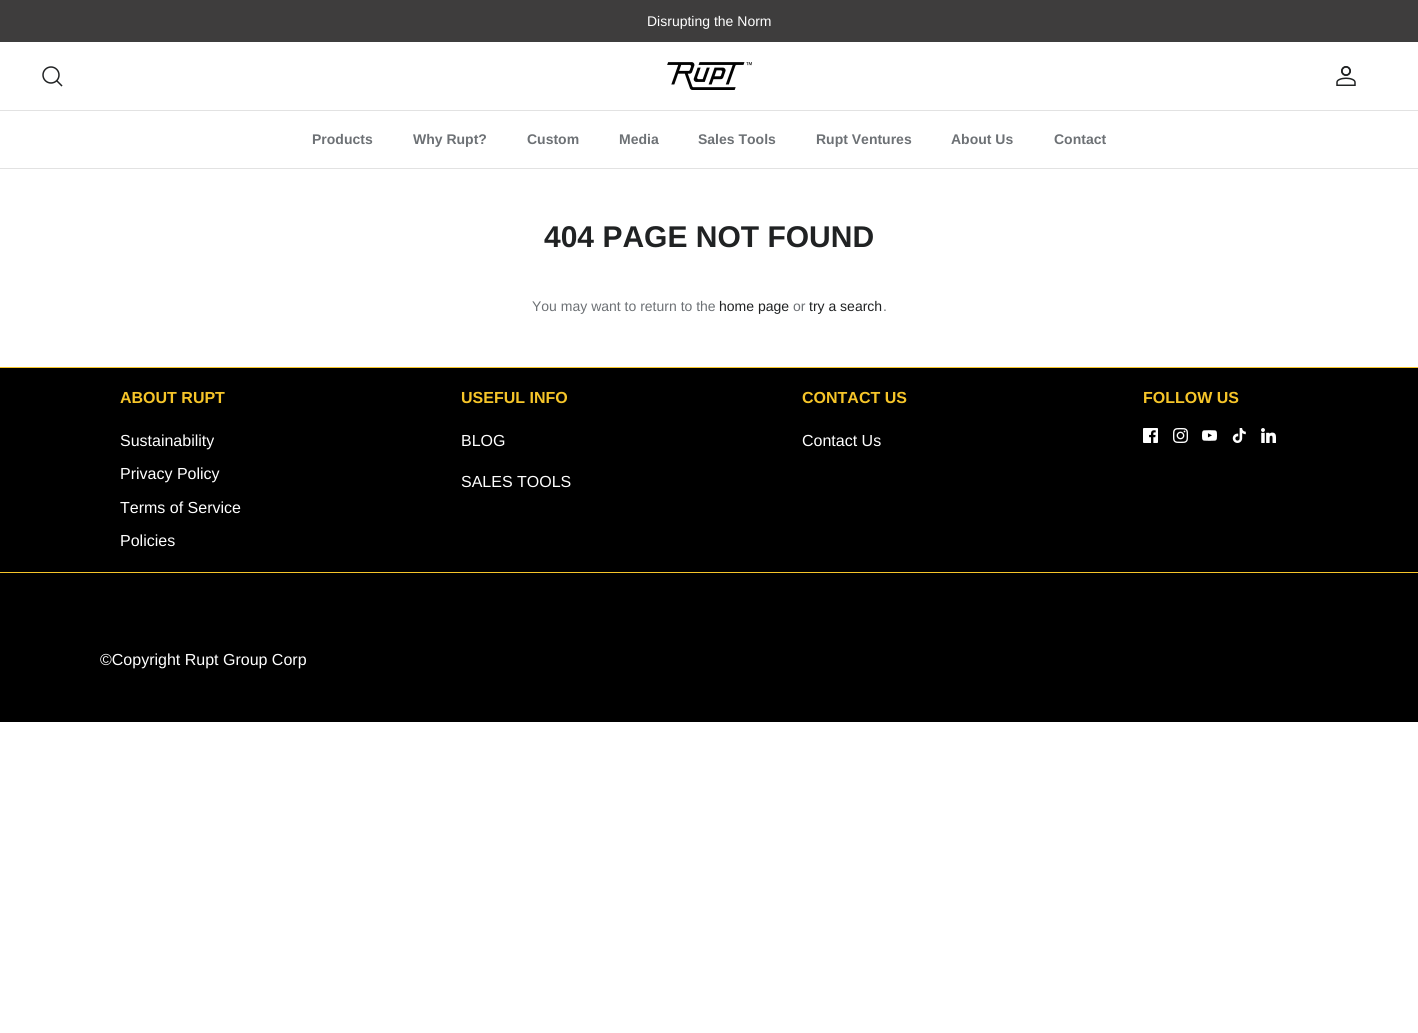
#include <cairo.h>
#include <math.h>
#include <stddef.h>

typedef struct { const char *family; double size; int italic, bold; unsigned color; } style_t;
static cairo_t *ctx;

static void ink(unsigned color) {
    cairo_set_source_rgb(ctx, (color >> 16) / 255.0, (color >> 8 & 255) / 255.0, (color & 255) / 255.0);
}

static void write(double x, double y, const char *s, const style_t *st) {
    cairo_select_font_face(ctx, st->family, st->italic ? CAIRO_FONT_SLANT_ITALIC : CAIRO_FONT_SLANT_NORMAL,
        st->bold ? CAIRO_FONT_WEIGHT_BOLD : CAIRO_FONT_WEIGHT_NORMAL);
    cairo_set_font_size(ctx, st->size);
    ink(st->color);
    cairo_move_to(ctx, x, y);
    cairo_show_text(ctx, s);
}

static void block(double x, double y, double w, double h, unsigned color) {
    ink(color);
    cairo_rectangle(ctx, x, y, w, h);
    cairo_fill(ctx);
}

static void paste(const char *path, double x, double y, double w, double h) {
    cairo_surface_t *image = cairo_image_surface_create_from_png(path);
    cairo_save(ctx);
    cairo_set_source_surface(ctx, image, x, y);
    cairo_rectangle(ctx, x, y, w, h);
    cairo_fill(ctx);
    cairo_restore(ctx);
    cairo_surface_destroy(image);
}

static const style_t s1 = {"Liberation Sans", 14, 0, 0, 0xffffff};
static const style_t s2 = {"Liberation Sans", 14, 0, 1, 0x6d7175};
static const style_t s3 = {"Liberation Sans", 30, 0, 1, 0x202223};
static const style_t s4 = {"Liberation Sans", 14, 0, 0, 0x6d7175};
static const style_t s5 = {"Liberation Sans", 14, 0, 0, 0x202223};
static const style_t s6 = {"Liberation Sans", 16, 0, 1, 0xf6c529};
static const style_t s7 = {"Liberation Sans", 16, 0, 0, 0xffffff};

int main(void) {
    cairo_surface_t *surface = cairo_image_surface_create(CAIRO_FORMAT_RGB24, 1418, 1033);
    ctx = cairo_create(surface);
    cairo_font_options_t *options = cairo_font_options_create();
    cairo_font_options_set_hint_metrics(options, CAIRO_HINT_METRICS_OFF);
    cairo_font_options_set_hint_style(options, CAIRO_HINT_STYLE_NONE);
    cairo_set_font_options(ctx, options);
    cairo_set_miter_limit(ctx, 4);
    ink(0xffffff);
    cairo_paint(ctx);
    block(0, 0, 1418, 42, 0x3e3d3d);
    write(647, 26, "Disrupting the Norm", &s1);
    block(0, 110, 1418, 1, 0xe2e2e2);
    cairo_new_path(ctx);
    cairo_arc(ctx, 51, 75, 8, 0, 2 * M_PI);
    ink(0x202223);
    cairo_set_line_width(ctx, 1.5);
    cairo_stroke(ctx);
    cairo_new_path(ctx);
    cairo_move_to(ctx, 57, 81);
    cairo_line_to(ctx, 61.5, 85.5);
    cairo_set_line_cap(ctx, CAIRO_LINE_CAP_SQUARE);
    cairo_stroke(ctx);
    paste("pic1.png", 667, 62, 85, 28);
    paste("pic2.png", 1336, 66, 20, 20);
    block(0, 168, 1418, 1, 0xe2e2e2);
    write(312, 144, "Products", &s2);
    write(413, 144, "Why Rupt?", &s2);
    write(527, 144, "Custom", &s2);
    write(619, 144, "Media", &s2);
    write(698, 144, "Sales Tools", &s2);
    write(816, 144, "Rupt Ventures", &s2);
    write(951, 144, "About Us", &s2);
    write(1054, 144, "Contact", &s2);
    write(544, 247, "404 PAGE NOT FOUND", &s3);
    write(532, 311, "You may want to return to the", &s4);
    write(719, 311, "home page", &s5);
    write(793, 311, "or", &s4);
    write(809, 311, "try a search", &s5);
    write(883, 311, ".", &s4);
    block(0, 368, 1418, 354, 0x000000);
    block(0, 367, 1418, 1, 0xf6c529);
    write(120, 403, "ABOUT RUPT", &s6);
    write(120, 446, "Sustainability", &s7);
    write(120, 479, "Privacy Policy", &s7);
    write(120, 513, "Terms of Service", &s7);
    write(120, 546, "Policies", &s7);
    write(461, 403, "USEFUL INFO", &s6);
    write(461, 446, "BLOG", &s7);
    write(461, 487, "SALES TOOLS", &s7);
    write(802, 403, "CONTACT US", &s6);
    write(802, 446, "Contact Us", &s7);
    write(1143, 403, "FOLLOW US", &s6);
    paste("pic3.png", 1143, 428, 15, 15);
    paste("pic4.png", 1173, 428, 15, 15);
    paste("pic5.png", 1202, 430, 15, 11);
    paste("pic6.png", 1232, 428, 14, 15);
    paste("pic7.png", 1261, 428, 15, 15);
    block(0, 572, 1418, 1, 0xf6c529);
    write(100, 665, "©Copyright Rupt Group Corp", &s7);
    cairo_surface_write_to_png(surface, "screenshot.png");
    cairo_font_options_destroy(options);
    cairo_destroy(ctx);
    cairo_surface_destroy(surface);
    return 0;
}
